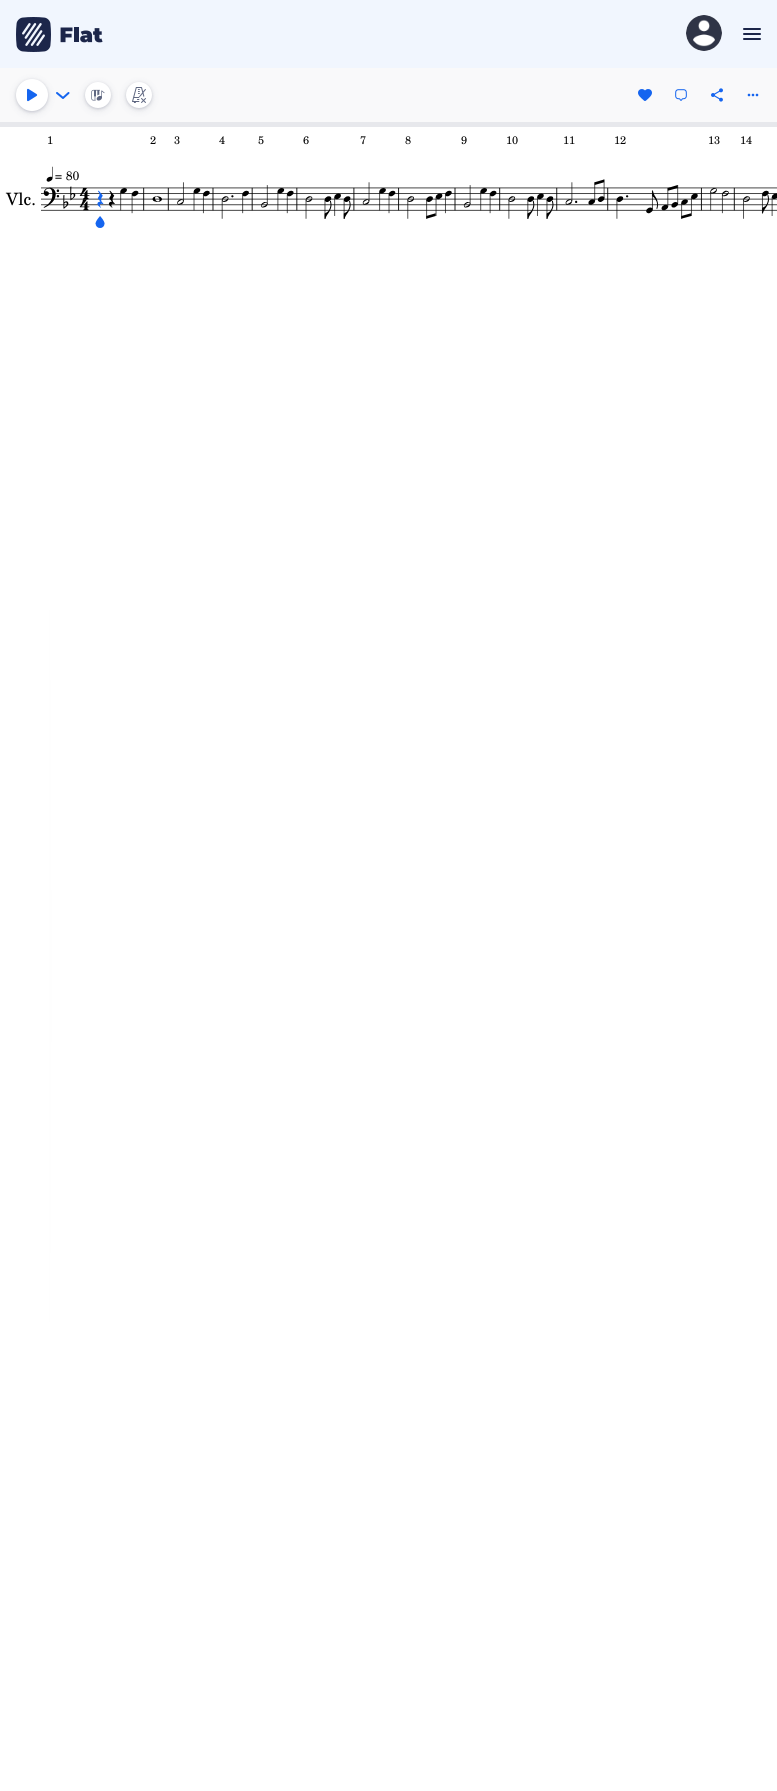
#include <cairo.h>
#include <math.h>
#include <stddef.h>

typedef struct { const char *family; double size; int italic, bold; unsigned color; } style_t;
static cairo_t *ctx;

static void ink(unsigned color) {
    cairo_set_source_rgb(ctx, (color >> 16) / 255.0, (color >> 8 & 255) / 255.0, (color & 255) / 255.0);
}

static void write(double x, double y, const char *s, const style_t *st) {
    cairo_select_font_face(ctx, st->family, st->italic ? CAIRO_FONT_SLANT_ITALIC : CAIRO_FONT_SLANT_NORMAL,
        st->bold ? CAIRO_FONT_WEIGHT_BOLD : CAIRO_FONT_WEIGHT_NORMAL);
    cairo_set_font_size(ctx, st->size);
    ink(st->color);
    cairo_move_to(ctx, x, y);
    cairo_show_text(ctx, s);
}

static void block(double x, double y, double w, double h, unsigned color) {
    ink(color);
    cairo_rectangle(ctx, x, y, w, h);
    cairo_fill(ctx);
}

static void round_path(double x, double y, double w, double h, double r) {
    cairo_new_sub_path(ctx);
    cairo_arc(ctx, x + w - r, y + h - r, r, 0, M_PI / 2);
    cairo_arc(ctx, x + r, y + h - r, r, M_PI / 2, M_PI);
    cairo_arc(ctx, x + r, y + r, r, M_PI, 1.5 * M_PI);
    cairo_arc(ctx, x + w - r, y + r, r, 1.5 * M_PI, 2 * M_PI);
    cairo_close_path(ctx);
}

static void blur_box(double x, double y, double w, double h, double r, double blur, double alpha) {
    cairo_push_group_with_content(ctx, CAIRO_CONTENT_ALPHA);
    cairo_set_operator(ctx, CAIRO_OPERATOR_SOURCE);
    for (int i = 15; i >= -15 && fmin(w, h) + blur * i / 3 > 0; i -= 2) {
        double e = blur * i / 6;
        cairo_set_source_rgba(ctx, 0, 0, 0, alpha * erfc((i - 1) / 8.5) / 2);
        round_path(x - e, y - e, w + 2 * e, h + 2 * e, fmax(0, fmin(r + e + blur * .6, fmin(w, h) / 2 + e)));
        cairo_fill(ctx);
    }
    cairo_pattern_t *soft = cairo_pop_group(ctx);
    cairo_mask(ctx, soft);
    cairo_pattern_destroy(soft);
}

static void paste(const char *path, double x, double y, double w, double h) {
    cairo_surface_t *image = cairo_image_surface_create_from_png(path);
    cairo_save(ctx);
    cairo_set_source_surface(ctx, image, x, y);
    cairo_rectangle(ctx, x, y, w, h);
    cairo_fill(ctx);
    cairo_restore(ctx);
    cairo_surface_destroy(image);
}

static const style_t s1 = {"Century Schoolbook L", 11, 0, 0, 0x000000};
static const style_t s2 = {"Century Schoolbook L", 17, 0, 0, 0x000000};

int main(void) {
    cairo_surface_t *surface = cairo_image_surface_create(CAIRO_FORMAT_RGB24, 777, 1791);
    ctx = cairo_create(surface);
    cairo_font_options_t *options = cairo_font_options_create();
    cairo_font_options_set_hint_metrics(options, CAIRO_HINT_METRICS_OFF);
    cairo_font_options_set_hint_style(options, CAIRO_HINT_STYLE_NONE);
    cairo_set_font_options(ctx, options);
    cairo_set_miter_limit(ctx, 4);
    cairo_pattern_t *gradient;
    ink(0xffffff);
    cairo_paint(ctx);
    block(0, 0, 777, 68, 0xf1f6fe);
    paste("pic1.png", 16, 17, 87, 35);
    ink(0xffffff);
    cairo_arc(ctx, 704, 33, 18, 0, 2 * M_PI);
    cairo_fill(ctx);
    paste("pic2.png", 686, 15, 36, 36);
    ink(0x1c264a);
    round_path(743, 28, 18, 2, 1);
    cairo_fill(ctx);
    round_path(743, 33, 18, 2, 1);
    cairo_fill(ctx);
    round_path(743, 38, 18, 2, 1);
    cairo_fill(ctx);
    block(0, 68, 777, 54, 0xf9f9fa);
    ink(0x28304f);
    blur_box(16, 80, 32, 32, 16, 1.5, 0.2);
    blur_box(16, 81, 32, 32, 16, 4, 0.1);
    ink(0xffffff);
    cairo_arc(ctx, 32, 95, 16, 0, 2 * M_PI);
    cairo_fill(ctx);
    paste("pic3.png", 27, 88, 11, 14);
    cairo_new_path(ctx);
    cairo_move_to(ctx, 57, 93);
    cairo_line_to(ctx, 63, 98);
    cairo_line_to(ctx, 68.5, 93);
    ink(0x1565ef);
    cairo_set_line_cap(ctx, CAIRO_LINE_CAP_ROUND);
    cairo_set_line_join(ctx, CAIRO_LINE_JOIN_ROUND);
    cairo_stroke(ctx);
    ink(0x28304f);
    blur_box(85, 83, 26, 26, 13, 1.5, 0.2);
    blur_box(85, 84, 26, 26, 13, 4, 0.1);
    ink(0xffffff);
    cairo_arc(ctx, 98, 95, 13, 0, 2 * M_PI);
    cairo_fill(ctx);
    paste("pic4.png", 91, 89, 14, 12);
    ink(0x28304f);
    blur_box(126, 83, 26, 26, 13, 1.5, 0.2);
    blur_box(126, 84, 26, 26, 13, 4, 0.1);
    ink(0xffffff);
    cairo_arc(ctx, 139, 95, 13, 0, 2 * M_PI);
    cairo_fill(ctx);
    paste("pic5.png", 132, 87, 14, 16);
    paste("pic6.png", 638, 89, 14, 12);
    paste("pic7.png", 675, 89, 12, 12);
    paste("pic8.png", 711, 88, 12, 14);
    paste("pic9.png", 747, 93, 12, 4);
    block(0, 122, 777, 5, 0xe7e8ec);
    write(47, 144, "1", &s1);
    write(150, 144, "2", &s1);
    write(174, 144, "3", &s1);
    write(219, 144, "4", &s1);
    write(258, 144, "5", &s1);
    write(303, 144, "6", &s1);
    write(360, 144, "7", &s1);
    write(405, 144, "8", &s1);
    write(461, 144, "9", &s1);
    write(506, 144, "10", &s1);
    write(563, 144, "11", &s1);
    write(614, 144, "12", &s1);
    write(708, 144, "13", &s1);
    write(740, 144, "14", &s1);
    gradient = cairo_pattern_create_radial(0, 0, 0, 0, 0, 1);
    cairo_pattern_set_matrix(gradient, &(cairo_matrix_t){1.0 / 11, 0, 0, 1.0 / 816, -1.0 * 41 / 11, -1.0 * 966 / 816});
    cairo_pattern_add_color_stop_rgba(gradient, 0, 0.569, 0.569, 0.569, 1);
    cairo_pattern_add_color_stop_rgba(gradient, 1, 1, 1, 1, 1);
    cairo_set_source(ctx, gradient);
    cairo_pattern_destroy(gradient);
    cairo_rectangle(ctx, 49, 476, 3, 980);
    cairo_fill(ctx);
    gradient = cairo_pattern_create_linear(41, 966, 777, 966);
    cairo_pattern_add_color_stop_rgba(gradient, 0, 1, 1, 1, 1);
    cairo_pattern_add_color_stop_rgba(gradient, 0.01, 1, 1, 1, 1);
    cairo_pattern_add_color_stop_rgba(gradient, 0.03, 1, 1, 1, 0.5);
    cairo_set_source(ctx, gradient);
    cairo_pattern_destroy(gradient);
    cairo_rectangle(ctx, 49, 476, 3, 980);
    cairo_fill(ctx);
    paste("pic10.png", 41, 166, 736, 62);
    write(6, 205, "Vlc.", &s2);
    cairo_surface_write_to_png(surface, "screenshot.png");
    cairo_font_options_destroy(options);
    cairo_destroy(ctx);
    cairo_surface_destroy(surface);
    return 0;
}
